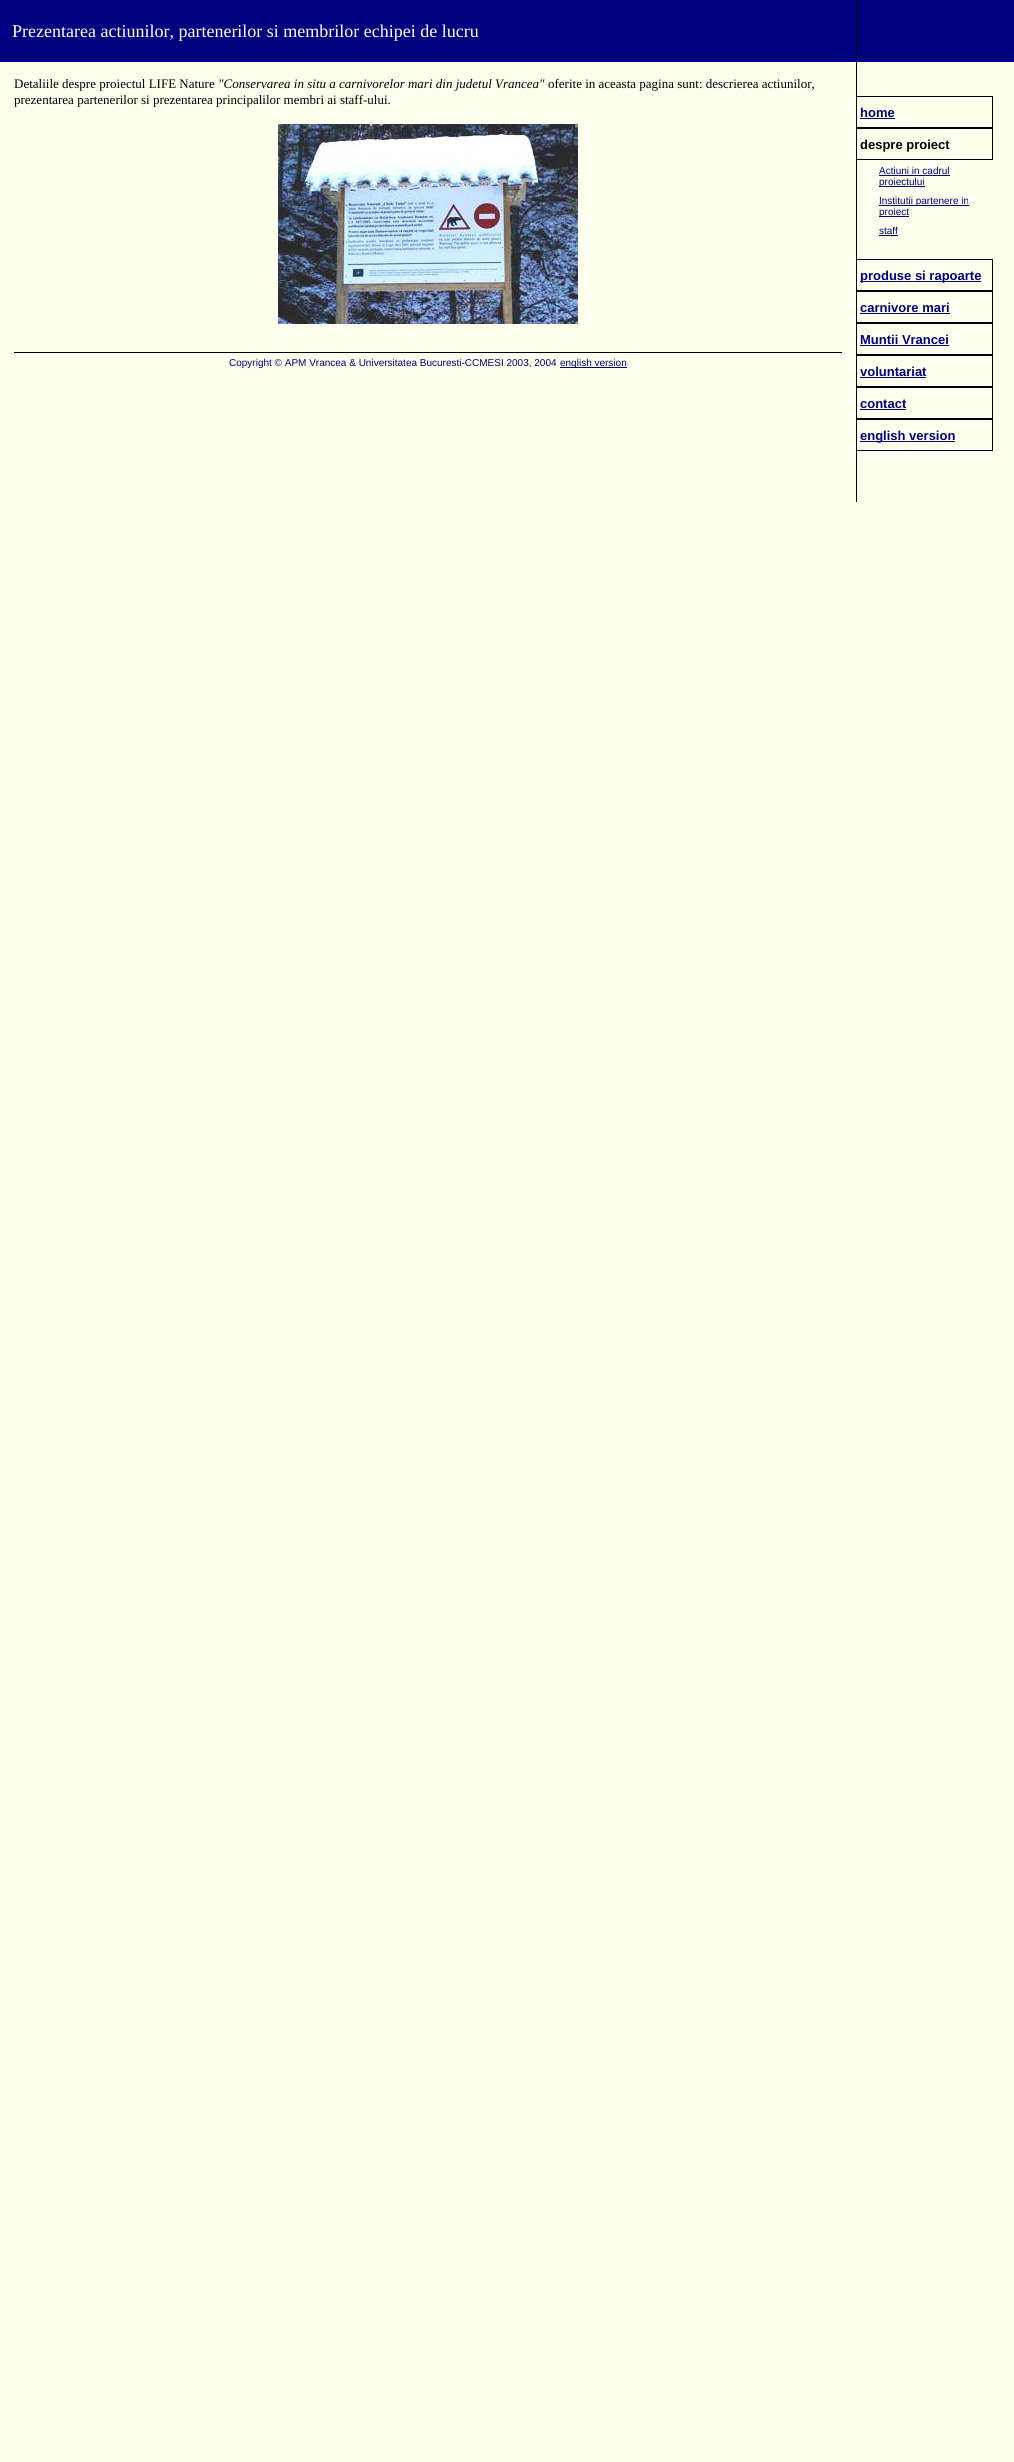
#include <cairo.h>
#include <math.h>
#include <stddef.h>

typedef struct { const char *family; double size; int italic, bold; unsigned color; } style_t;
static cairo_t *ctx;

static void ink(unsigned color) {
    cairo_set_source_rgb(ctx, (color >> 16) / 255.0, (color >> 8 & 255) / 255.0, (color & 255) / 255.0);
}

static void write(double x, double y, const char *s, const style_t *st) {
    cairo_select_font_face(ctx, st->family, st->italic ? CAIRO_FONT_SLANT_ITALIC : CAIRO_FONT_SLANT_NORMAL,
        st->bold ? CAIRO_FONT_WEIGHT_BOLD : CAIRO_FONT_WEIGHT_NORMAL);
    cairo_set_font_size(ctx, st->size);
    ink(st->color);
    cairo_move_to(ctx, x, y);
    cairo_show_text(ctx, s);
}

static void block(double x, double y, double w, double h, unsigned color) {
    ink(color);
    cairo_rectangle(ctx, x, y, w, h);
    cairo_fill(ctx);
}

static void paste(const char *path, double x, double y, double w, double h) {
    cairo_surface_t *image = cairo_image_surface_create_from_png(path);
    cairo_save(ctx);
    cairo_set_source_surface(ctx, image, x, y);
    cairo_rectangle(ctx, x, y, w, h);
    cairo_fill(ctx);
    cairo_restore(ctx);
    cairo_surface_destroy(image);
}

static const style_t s1 = {"Liberation Serif", 18, 0, 0, 0xffffff};
static const style_t s2 = {"Liberation Serif", 13, 0, 0, 0x000000};
static const style_t s3 = {"Liberation Serif", 13, 1, 0, 0x000000};
static const style_t s4 = {"Liberation Sans", 10, 0, 0, 0x000080};
static const style_t s5 = {"Liberation Sans", 13, 0, 1, 0x000080};
static const style_t s6 = {"Liberation Sans", 13, 0, 1, 0x000000};

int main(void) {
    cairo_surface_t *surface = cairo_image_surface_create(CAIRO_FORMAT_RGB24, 1014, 2462);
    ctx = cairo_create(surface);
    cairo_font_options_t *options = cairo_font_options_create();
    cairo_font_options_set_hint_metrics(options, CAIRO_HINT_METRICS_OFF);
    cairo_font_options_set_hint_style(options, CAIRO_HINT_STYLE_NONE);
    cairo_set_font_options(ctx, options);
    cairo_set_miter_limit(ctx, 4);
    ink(0xffffee);
    cairo_paint(ctx);
    block(0, 0, 856, 62, 0x000080);
    write(12, 37, "Prezentarea actiunilor, partenerilor si membrilor echipei de lucru", &s1);
    block(856, 0, 1, 502, 0x000000);
    block(857, 0, 157, 62, 0x000080);
    write(14, 88, "Detaliile despre proiectul LIFE Nature", &s2);
    write(218, 88, "\"Conservarea in situ a carnivorelor mari din judetul Vrancea\"", &s3);
    write(548, 88, "oferite in aceasta pagina sunt: descrierea actiunilor,", &s2);
    write(14, 104, "prezentarea partenerilor si prezentarea principalilor membri ai staff-ului.", &s2);
    paste("pic1.png", 278, 124, 300, 200);
    block(14, 352, 828, 1, 0x000000);
    write(229, 366, "Copyright © APM Vrancea & Universitatea Bucuresti-CCMESI 2003, 2004", &s4);
    block(560, 367, 67, 1, 0x000080);
    write(560, 366, "english version", &s4);
    block(857, 96, 136, 1, 0x000000);
    write(860, 117, "home", &s5);
    block(860, 118, 35, 1, 0x000080);
    block(992, 97, 1, 30, 0x000000);
    block(857, 127, 136, 2, 0x000000);
    write(860, 149, "despre proiect", &s6);
    block(992, 129, 1, 30, 0x000000);
    block(857, 159, 136, 1, 0x000000);
    write(879, 174, "Actiuni in cadrul", &s4);
    block(879, 175, 71, 1, 0x000080);
    block(879, 186, 46, 1, 0x000080);
    write(879, 185, "proiectului", &s4);
    block(879, 205, 90, 1, 0x000080);
    write(879, 204, "Institutii partenere in", &s4);
    block(879, 216, 30, 1, 0x000080);
    write(879, 215, "proiect", &s4);
    write(879, 234, "staff", &s4);
    block(879, 235, 19, 1, 0x000080);
    block(857, 259, 136, 1, 0x000000);
    block(860, 281, 121, 1, 0x000080);
    write(860, 280, "produse si rapoarte", &s5);
    block(992, 260, 1, 30, 0x000000);
    block(857, 290, 136, 2, 0x000000);
    write(860, 312, "carnivore mari", &s5);
    block(860, 313, 90, 1, 0x000080);
    block(992, 292, 1, 30, 0x000000);
    block(857, 322, 136, 2, 0x000000);
    write(860, 344, "Muntii Vrancei", &s5);
    block(860, 345, 89, 1, 0x000080);
    block(992, 324, 1, 30, 0x000000);
    block(857, 354, 136, 2, 0x000000);
    write(860, 376, "voluntariat", &s5);
    block(860, 377, 66, 1, 0x000080);
    block(992, 356, 1, 30, 0x000000);
    block(857, 386, 136, 2, 0x000000);
    write(860, 408, "contact", &s5);
    block(860, 409, 46, 1, 0x000080);
    block(992, 388, 1, 30, 0x000000);
    block(857, 418, 136, 2, 0x000000);
    block(860, 441, 95, 1, 0x000080);
    write(860, 440, "english version", &s5);
    block(992, 420, 1, 30, 0x000000);
    block(857, 450, 136, 1, 0x000000);
    cairo_surface_write_to_png(surface, "screenshot.png");
    cairo_font_options_destroy(options);
    cairo_destroy(ctx);
    cairo_surface_destroy(surface);
    return 0;
}
